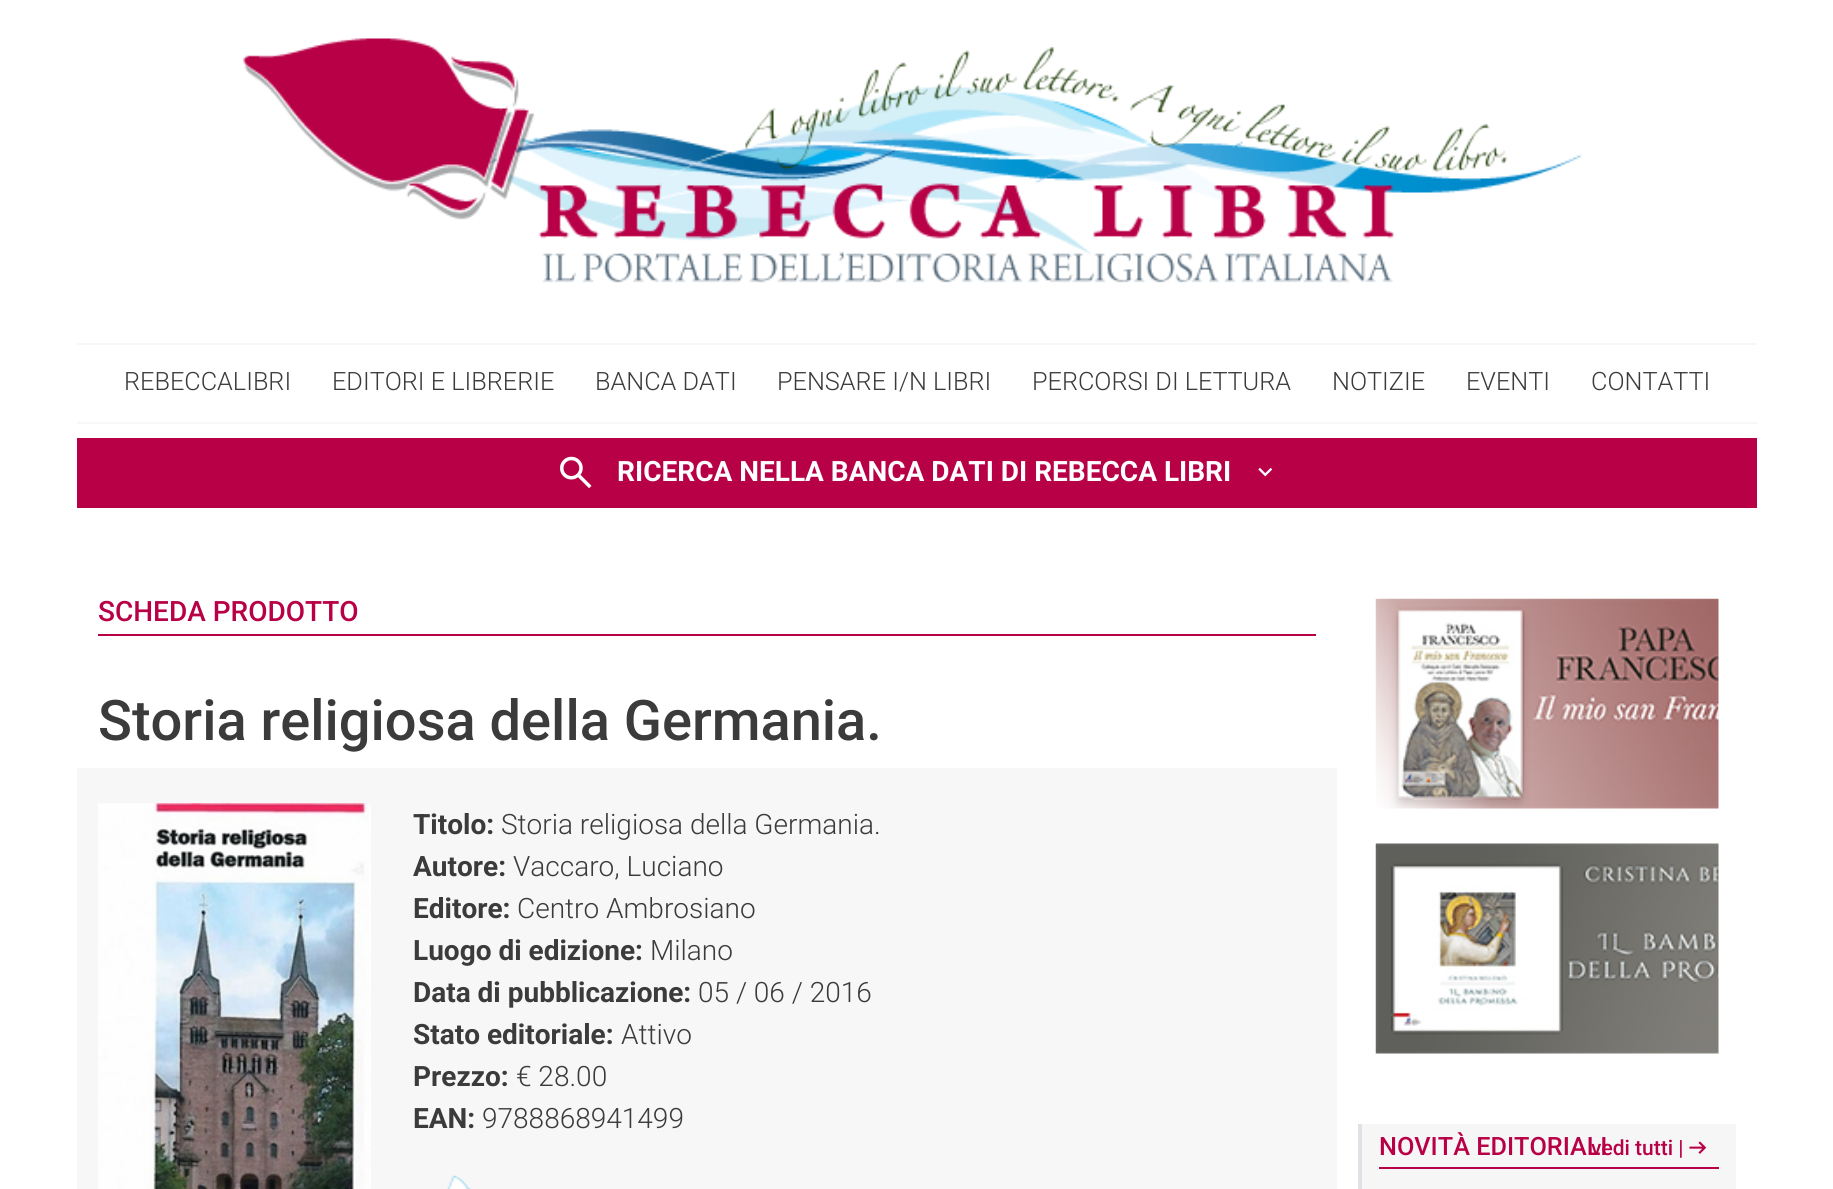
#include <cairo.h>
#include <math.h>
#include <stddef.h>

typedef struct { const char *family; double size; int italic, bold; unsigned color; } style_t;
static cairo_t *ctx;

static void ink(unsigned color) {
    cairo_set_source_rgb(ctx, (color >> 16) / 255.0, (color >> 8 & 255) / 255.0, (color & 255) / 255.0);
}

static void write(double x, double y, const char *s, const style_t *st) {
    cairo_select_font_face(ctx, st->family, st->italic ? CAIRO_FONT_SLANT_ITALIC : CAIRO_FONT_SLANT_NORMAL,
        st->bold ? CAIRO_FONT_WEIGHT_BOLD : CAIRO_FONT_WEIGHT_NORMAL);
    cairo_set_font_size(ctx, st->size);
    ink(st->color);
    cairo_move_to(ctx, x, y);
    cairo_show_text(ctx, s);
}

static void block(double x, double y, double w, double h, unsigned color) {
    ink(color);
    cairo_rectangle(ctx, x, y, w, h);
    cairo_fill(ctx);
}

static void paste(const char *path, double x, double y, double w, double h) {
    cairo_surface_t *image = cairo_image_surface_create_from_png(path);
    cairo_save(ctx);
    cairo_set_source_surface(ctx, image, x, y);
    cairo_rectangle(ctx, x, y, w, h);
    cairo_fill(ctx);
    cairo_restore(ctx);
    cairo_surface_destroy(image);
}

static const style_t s1 = {"Roboto Light", 25.25, 0, 0, 0x3b3b3b};
static const style_t s2 = {"Roboto", 28, 0, 1, 0xffffff};
static const style_t s3 = {"Roboto Medium", 28, 0, 0, 0xb80047};
static const style_t s4 = {"Roboto Medium", 56, 0, 0, 0x3b3b3b};
static const style_t s5 = {"Roboto", 28, 0, 1, 0x3b3b3b};
static const style_t s6 = {"Roboto Light", 28, 0, 0, 0x3b3b3b};
static const style_t s7 = {"Roboto Medium", 25.25, 0, 0, 0xb80047};
static const style_t s8 = {"Roboto Medium", 21, 0, 0, 0xb80047};

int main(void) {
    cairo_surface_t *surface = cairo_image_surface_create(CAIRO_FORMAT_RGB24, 1833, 1189);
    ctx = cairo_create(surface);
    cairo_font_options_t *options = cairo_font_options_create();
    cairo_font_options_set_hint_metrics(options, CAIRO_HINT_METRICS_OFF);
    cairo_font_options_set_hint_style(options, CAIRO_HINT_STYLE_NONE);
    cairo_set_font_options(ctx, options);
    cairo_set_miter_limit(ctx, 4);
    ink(0xffffff);
    cairo_paint(ctx);
    paste("pic1.png", 242, 38, 1340, 245);
    block(77, 343, 1680, 2, 0xf7f7f7);
    block(77, 422, 1680, 2, 0xf7f7f7);
    write(124, 390, "REBECCALIBRI", &s1);
    write(332, 390, "EDITORI E LIBRERIE", &s1);
    write(595, 390, "BANCA DATI", &s1);
    write(777, 390, "PENSARE I/N LIBRI", &s1);
    write(1032, 390, "PERCORSI DI LETTURA", &s1);
    write(1332, 390, "NOTIZIE", &s1);
    write(1466, 390, "EVENTI", &s1);
    write(1591, 390, "CONTATTI", &s1);
    block(77, 438, 1680, 70, 0xb80047);
    paste("pic2.png", 560, 456, 32, 33);
    write(617, 481, "RICERCA NELLA BANCA DATI DI REBECCA LIBRI", &s2);
    paste("pic3.png", 1258, 467, 15, 10);
    block(98, 634, 1218, 2, 0xb80047);
    write(98, 621, "SCHEDA PRODOTTO", &s3);
    write(98, 740, "Storia religiosa della Germania.", &s4);
    block(77, 768, 1260, 421, 0xf7f7f7);
    paste("pic4.png", 98, 803, 273, 386);
    write(413, 834, "Titolo:", &s5);
    write(501, 834, "Storia religiosa della Germania.", &s6);
    write(413, 876, "Autore:", &s5);
    write(513, 876, "Vaccaro, Luciano", &s6);
    write(413, 918, "Editore:", &s5);
    write(517, 918, "Centro Ambrosiano", &s6);
    write(413, 960, "Luogo di edizione:", &s5);
    write(650, 960, "Milano", &s6);
    write(413, 1002, "Data di pubblicazione:", &s5);
    write(698, 1002, "05 / 06 / 2016", &s6);
    write(413, 1044, "Stato editoriale:", &s5);
    write(621, 1044, "Attivo", &s6);
    write(413, 1086, "Prezzo:", &s5);
    write(516, 1086, "€ 28.00", &s6);
    write(413, 1128, "EAN:", &s5);
    write(482, 1128, "9788868941499", &s6);
    paste("pic5.png", 447, 1175, 24, 14);
    paste("pic6.png", 1375, 598, 344, 211);
    paste("pic7.png", 1375, 843, 344, 211);
    block(1362, 1124, 374, 65, 0xf6f6f6);
    block(1358, 1124, 4, 65, 0xdee2e6);
    block(1379, 1167, 340, 2, 0xb80047);
    write(1379, 1155, "NOVITÀ EDITORIALI", &s7);
    write(1591, 1155, "vedi tutti |", &s8);
    paste("pic8.png", 1689, 1141, 18, 13);
    cairo_surface_write_to_png(surface, "screenshot.png");
    cairo_font_options_destroy(options);
    cairo_destroy(ctx);
    cairo_surface_destroy(surface);
    return 0;
}
